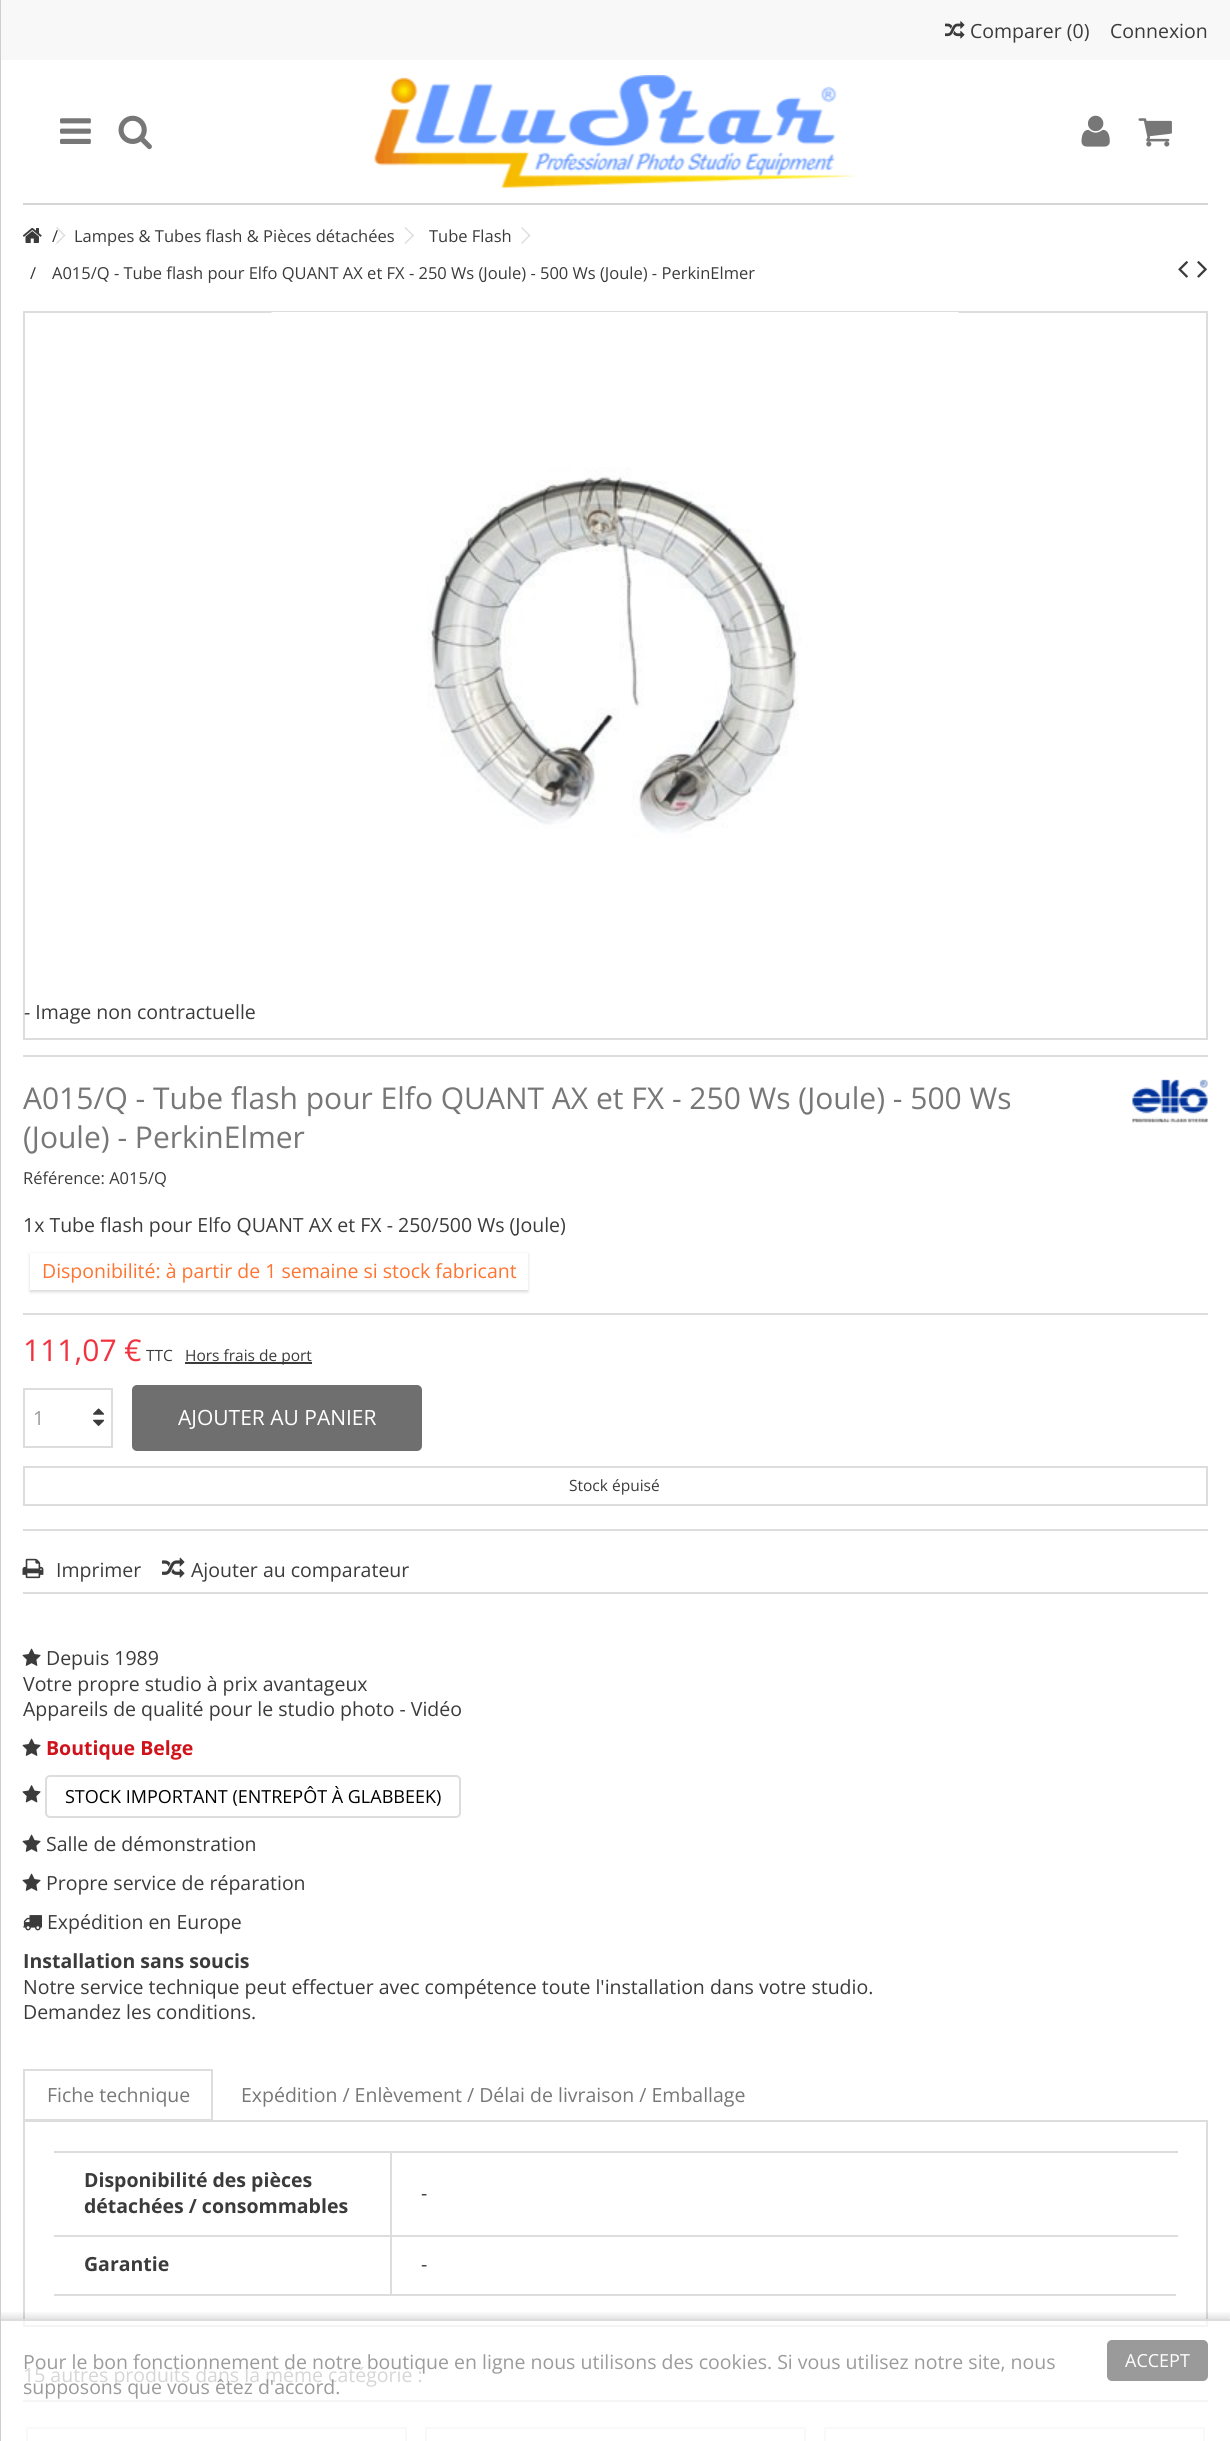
#include <cairo.h>
#include <math.h>
#include <stddef.h>

typedef struct { const char *family; double size; int italic, bold; unsigned color; } style_t;
static cairo_t *ctx;

static void ink(unsigned color) {
    cairo_set_source_rgb(ctx, (color >> 16) / 255.0, (color >> 8 & 255) / 255.0, (color & 255) / 255.0);
}

static void write(double x, double y, const char *s, const style_t *st) {
    cairo_select_font_face(ctx, st->family, st->italic ? CAIRO_FONT_SLANT_ITALIC : CAIRO_FONT_SLANT_NORMAL,
        st->bold ? CAIRO_FONT_WEIGHT_BOLD : CAIRO_FONT_WEIGHT_NORMAL);
    cairo_set_font_size(ctx, st->size);
    ink(st->color);
    cairo_move_to(ctx, x, y);
    cairo_show_text(ctx, s);
}

static void block(double x, double y, double w, double h, unsigned color) {
    ink(color);
    cairo_rectangle(ctx, x, y, w, h);
    cairo_fill(ctx);
}

static void round_path(double x, double y, double w, double h, double r) {
    cairo_new_sub_path(ctx);
    cairo_arc(ctx, x + w - r, y + h - r, r, 0, M_PI / 2);
    cairo_arc(ctx, x + r, y + h - r, r, M_PI / 2, M_PI);
    cairo_arc(ctx, x + r, y + r, r, M_PI, 1.5 * M_PI);
    cairo_arc(ctx, x + w - r, y + r, r, 1.5 * M_PI, 2 * M_PI);
    cairo_close_path(ctx);
}

static void blur_box(double x, double y, double w, double h, double r, double blur, double alpha) {
    cairo_push_group_with_content(ctx, CAIRO_CONTENT_ALPHA);
    cairo_set_operator(ctx, CAIRO_OPERATOR_SOURCE);
    for (int i = 15; i >= -15 && fmin(w, h) + blur * i / 3 > 0; i -= 2) {
        double e = blur * i / 6;
        cairo_set_source_rgba(ctx, 0, 0, 0, alpha * erfc((i - 1) / 8.5) / 2);
        round_path(x - e, y - e, w + 2 * e, h + 2 * e, fmax(0, fmin(r + e + blur * .6, fmin(w, h) / 2 + e)));
        cairo_fill(ctx);
    }
    cairo_pattern_t *soft = cairo_pop_group(ctx);
    cairo_mask(ctx, soft);
    cairo_pattern_destroy(soft);
}

static void paste(const char *path, double x, double y, double w, double h) {
    cairo_surface_t *image = cairo_image_surface_create_from_png(path);
    cairo_save(ctx);
    cairo_set_source_surface(ctx, image, x, y);
    cairo_rectangle(ctx, x, y, w, h);
    cairo_fill(ctx);
    cairo_restore(ctx);
    cairo_surface_destroy(image);
}

static const style_t s1 = {"Open Sans", 19.5, 0, 0, 0x3b3b3b};
static const style_t s2 = {"Open Sans", 16.5, 0, 0, 0x333333};
static const style_t s3 = {"Open Sans", 16.5, 0, 0, 0x3b3b3b};
static const style_t s4 = {"Open Sans", 30, 0, 0, 0x777777};
static const style_t s5 = {"Open Sans", 19.5, 0, 0, 0xff7430};
static const style_t s6 = {"Open Sans", 30, 0, 0, 0xf13340};
static const style_t s7 = {"Open Sans", 15.5, 0, 0, 0x3b3b3b};
static const style_t s8 = {"Open Sans", 19.5, 0, 0, 0x9c9b9b};
static const style_t s9 = {"Open Sans", 21, 0, 0, 0xffffff};
static const style_t s10 = {"Open Sans", 19.5, 0, 1, 0xd0121a};
static const style_t s11 = {"Open Sans", 18, 0, 0, 0x000000};
static const style_t s12 = {"Open Sans", 19.5, 0, 1, 0x3b3b3b};
static const style_t s13 = {"Open Sans", 19.5, 0, 0, 0x777777};
static const style_t s14 = {"Open Sans", 19.5, 0, 0, 0xd6d6d6};
static const style_t s15 = {"Open Sans", 18, 0, 0, 0xffffff};

int main(void) {
    cairo_surface_t *surface = cairo_image_surface_create(CAIRO_FORMAT_RGB24, 1230, 2441);
    ctx = cairo_create(surface);
    cairo_font_options_t *options = cairo_font_options_create();
    cairo_font_options_set_hint_metrics(options, CAIRO_HINT_METRICS_OFF);
    cairo_font_options_set_hint_style(options, CAIRO_HINT_STYLE_NONE);
    cairo_set_font_options(ctx, options);
    cairo_set_miter_limit(ctx, 4);
    ink(0xffffff);
    cairo_paint(ctx);
    block(0, 2319, 1230, 2, 0xdddddd);
    block(23, 2120, 1185, 2, 0xdddddd);
    block(1206, 2121, 2, 206, 0xdddddd);
    block(1206, 2319, 2, 8, 0xf5f5f5);
    block(1206, 2319, 2, 2, 0xdadada);
    block(23, 2325, 1185, 2, 0xf5f5f5);
    block(23, 2121, 2, 206, 0xdddddd);
    block(23, 2319, 2, 8, 0xf5f5f5);
    block(23, 2319, 2, 2, 0xdadada);
    block(23, 2400, 1185, 2, 0xf5f5f5);
    cairo_rectangle(ctx, 27, 2428, 379, 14);
    ink(0xf9f9f9);
    cairo_stroke(ctx);
    cairo_rectangle(ctx, 426, 2428, 379, 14);
    cairo_stroke(ctx);
    cairo_rectangle(ctx, 825, 2428, 379, 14);
    cairo_stroke(ctx);
    cairo_save(ctx);
    cairo_rectangle(ctx, 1, 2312, 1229, 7);
    cairo_clip(ctx);
    ink(0x000000);
    blur_box(0, 2316, 1230, 123, 0, 4, 0.14);
    cairo_restore(ctx);
    block(0, 0, 1, 2441, 0xcecece);
    block(1, 0, 1229, 60, 0xf8f8f8);
    paste("pic1.png", 945, 21, 20, 18);
    write(970, 38, "Comparer (0)", &s1);
    write(1110, 38, "Connexion", &s1);
    block(23, 203, 1185, 2, 0xd6d4d4);
    paste("pic2.png", 60, 118, 31, 26);
    paste("pic3.png", 118, 115, 34, 35);
    paste("pic4.png", 374, 75, 482, 113);
    paste("pic5.png", 1081, 115, 29, 32);
    paste("pic6.png", 1138, 118, 34, 29);
    paste("pic7.png", 23, 228, 19, 15);
    write(52, 242, "/", &s2);
    ink(0xdddddd);
    cairo_new_path(ctx);
    cairo_move_to(ctx, 57, 227);
    cairo_line_to(ctx, 65.5, 235.5);
    cairo_line_to(ctx, 64.5, 236.5);
    cairo_line_to(ctx, 56, 228);
    cairo_close_path(ctx);
    cairo_fill(ctx);
    cairo_new_path(ctx);
    cairo_move_to(ctx, 64.5, 234.5);
    cairo_line_to(ctx, 65.5, 235.5);
    cairo_line_to(ctx, 57, 244);
    cairo_line_to(ctx, 56, 243);
    cairo_close_path(ctx);
    cairo_fill(ctx);
    write(74, 242, "Lampes & Tubes flash & Pièces détachées", &s3);
    ink(0xdddddd);
    cairo_new_path(ctx);
    cairo_move_to(ctx, 405.5, 227);
    cairo_line_to(ctx, 414, 235.5);
    cairo_line_to(ctx, 413, 236.5);
    cairo_line_to(ctx, 404.5, 228);
    cairo_close_path(ctx);
    cairo_fill(ctx);
    cairo_new_path(ctx);
    cairo_move_to(ctx, 413, 234.5);
    cairo_line_to(ctx, 414, 235.5);
    cairo_line_to(ctx, 405.5, 244);
    cairo_line_to(ctx, 404.5, 243);
    cairo_close_path(ctx);
    cairo_fill(ctx);
    write(429, 242, "Tube Flash", &s3);
    ink(0xdddddd);
    cairo_new_path(ctx);
    cairo_move_to(ctx, 522, 227);
    cairo_line_to(ctx, 530.5, 235.5);
    cairo_line_to(ctx, 529.5, 236.5);
    cairo_line_to(ctx, 521, 228);
    cairo_close_path(ctx);
    cairo_fill(ctx);
    cairo_new_path(ctx);
    cairo_move_to(ctx, 529.5, 234.5);
    cairo_line_to(ctx, 530.5, 235.5);
    cairo_line_to(ctx, 522, 244);
    cairo_line_to(ctx, 521, 243);
    cairo_close_path(ctx);
    cairo_fill(ctx);
    write(30, 279, "/", &s2);
    write(52, 279, "A015/Q - Tube flash pour Elfo QUANT AX et FX - 250 Ws (Joule) - 500 Ws (Joule) - PerkinElmer", &s3);
    paste("pic8.png", 1178, 261, 10, 17);
    paste("pic9.png", 1197, 261, 10, 17);
    cairo_rectangle(ctx, 24, 312, 1183, 727);
    ink(0xdddddd);
    cairo_stroke(ctx);
    paste("pic10.png", 271, 312, 688, 526);
    write(24, 1019, "- Image non contractuelle", &s1);
    block(23, 1055, 1185, 2, 0xdddddd);
    write(23, 1109, "A015/Q - Tube flash pour Elfo QUANT AX et FX - 250 Ws (Joule) - 500 Ws", &s4);
    write(23, 1148, "(Joule) - PerkinElmer", &s4);
    paste("pic11.png", 1132, 1079, 76, 44);
    write(23, 1184, "Référence: A015/Q", &s3);
    write(23, 1232, "1x Tube flash pour Elfo QUANT AX et FX - 250/500 Ws (Joule)", &s1);
    cairo_save(ctx);
    cairo_set_fill_rule(ctx, CAIRO_FILL_RULE_EVEN_ODD);
    cairo_new_path(ctx);
    cairo_move_to(ctx, 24, 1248);
    cairo_line_to(ctx, 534, 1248);
    cairo_line_to(ctx, 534, 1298);
    cairo_line_to(ctx, 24, 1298);
    cairo_close_path(ctx);
    cairo_move_to(ctx, 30, 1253);
    cairo_line_to(ctx, 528, 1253);
    cairo_line_to(ctx, 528, 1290);
    cairo_line_to(ctx, 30, 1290);
    cairo_close_path(ctx);
    cairo_clip(ctx);
    ink(0x000000);
    blur_box(30, 1254, 498, 38, 0, 1.5, 0.15);
    cairo_restore(ctx);
    write(42, 1278, "Disponibilité: à partir de 1 semaine si stock fabricant", &s5);
    block(23, 1313, 1185, 2, 0xdddddd);
    write(23, 1361, "111,07 €", &s6);
    write(146, 1361, "TTC", &s7);
    block(185, 1362, 127, 2, 0x3b3b3b);
    write(185, 1361, "Hors frais de port", &s7);
    cairo_rectangle(ctx, 24, 1389, 88, 58);
    ink(0xdddddd);
    cairo_stroke(ctx);
    write(33, 1425, "1", &s8);
    paste("pic12.png", 93, 1408, 12, 7);
    paste("pic13.png", 93, 1419, 12, 7);
    ink(0x6f6f6f);
    round_path(132, 1385, 290, 66, 5);
    cairo_fill(ctx);
    write(178, 1425, "AJOUTER AU PANIER", &s9);
    cairo_rectangle(ctx, 24, 1467, 1183, 38);
    ink(0xdddddd);
    cairo_stroke(ctx);
    write(569, 1491, "Stock épuisé", &s7);
    block(23, 1529, 1185, 2, 0xdddddd);
    paste("pic14.png", 22, 1558, 22, 21);
    write(56, 1577, "Imprimer", &s1);
    paste("pic15.png", 162, 1557, 23, 21);
    write(191, 1577, "Ajouter au comparateur", &s1);
    block(23, 1592, 1185, 2, 0xdddddd);
    paste("pic16.png", 22, 1648, 19, 18);
    write(46, 1665, "Depuis 1989", &s1);
    write(23, 1691, "Votre propre studio à prix avantageux", &s1);
    write(23, 1716, "Appareils de qualité pour le studio photo - Vidéo", &s1);
    paste("pic16.png", 22, 1738, 19, 18);
    write(46, 1755, "Boutique Belge", &s10);
    paste("pic17.png", 22, 1785, 19, 18);
    round_path(46, 1776, 414, 41, 4);
    ink(0xdddddd);
    cairo_stroke(ctx);
    write(65, 1803, "STOCK IMPORTANT (ENTREPÔT À GLABBEEK)", &s11);
    paste("pic16.png", 22, 1834, 19, 18);
    write(46, 1851, "Salle de démonstration", &s1);
    paste("pic16.png", 22, 1873, 19, 18);
    write(46, 1890, "Propre service de réparation", &s1);
    paste("pic18.png", 23, 1915, 19, 16);
    write(47, 1929, "Expédition en Europe", &s1);
    write(23, 1968, "Installation sans soucis", &s12);
    write(23, 1994, "Notre service technique peut effectuer avec compétence toute l'installation dans votre studio.", &s1);
    write(23, 2019, "Demandez les conditions.", &s1);
    cairo_rectangle(ctx, 24, 2070, 188, 50);
    ink(0xdddddd);
    cairo_stroke(ctx);
    write(47, 2102, "Fiche technique", &s13);
    write(241, 2102, "Expédition / Enlèvement / Délai de livraison / Emballage", &s13);
    block(54, 2294, 1122, 2, 0xdddddd);
    block(54, 2151, 1124, 2, 0xdddddd);
    write(84, 2187, "Disponibilité des pièces", &s12);
    write(84, 2213, "détachées / consommables", &s12);
    write(421, 2200, "-", &s1);
    block(54, 2235, 1124, 2, 0xdddddd);
    block(390, 2151, 2, 144, 0xdddddd);
    write(84, 2271, "Garantie", &s12);
    write(421, 2271, "-", &s1);
    write(23, 2382, "15 autres produits dans la même catégorie :", &s14);
    write(23, 2369, "Pour le bon fonctionnement de notre boutique en ligne nous utilisons des cookies. Si vous utilisez notre site, nous", &s8);
    write(23, 2394, "supposons que vous êtez d'accord.", &s8);
    ink(0x9a9a9a);
    round_path(1107, 2340, 101, 41, 5);
    cairo_fill(ctx);
    write(1125, 2367, "ACCEPT", &s15);
    cairo_surface_write_to_png(surface, "screenshot.png");
    cairo_font_options_destroy(options);
    cairo_destroy(ctx);
    cairo_surface_destroy(surface);
    return 0;
}
